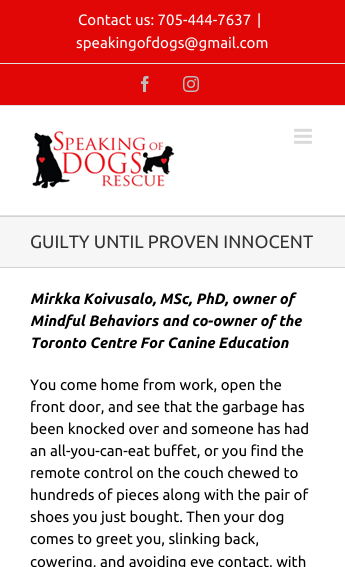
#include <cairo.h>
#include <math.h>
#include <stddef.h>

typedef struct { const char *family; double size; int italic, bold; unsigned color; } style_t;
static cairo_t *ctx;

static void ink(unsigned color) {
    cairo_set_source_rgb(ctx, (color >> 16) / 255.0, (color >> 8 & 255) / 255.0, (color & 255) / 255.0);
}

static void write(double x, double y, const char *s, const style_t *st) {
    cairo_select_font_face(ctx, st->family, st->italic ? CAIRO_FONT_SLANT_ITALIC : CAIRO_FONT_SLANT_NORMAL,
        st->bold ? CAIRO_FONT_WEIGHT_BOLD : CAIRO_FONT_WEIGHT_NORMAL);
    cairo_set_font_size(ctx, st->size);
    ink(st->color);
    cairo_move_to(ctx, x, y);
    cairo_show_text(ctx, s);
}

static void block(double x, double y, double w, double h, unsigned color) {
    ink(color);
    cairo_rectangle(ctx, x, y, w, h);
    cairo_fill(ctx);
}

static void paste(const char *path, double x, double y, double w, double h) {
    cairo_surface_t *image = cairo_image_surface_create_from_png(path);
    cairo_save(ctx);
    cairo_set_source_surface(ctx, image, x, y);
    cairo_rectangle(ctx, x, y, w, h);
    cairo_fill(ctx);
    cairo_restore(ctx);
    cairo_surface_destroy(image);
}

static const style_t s1 = {"Ubuntu", 15, 0, 0, 0xffffff};
static const style_t s2 = {"Ubuntu", 18, 0, 0, 0x333333};
static const style_t s3 = {"Ubuntu", 15, 1, 1, 0x000000};
static const style_t s4 = {"Ubuntu", 15, 0, 0, 0x000000};

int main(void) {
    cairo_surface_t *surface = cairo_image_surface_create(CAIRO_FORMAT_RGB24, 345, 567);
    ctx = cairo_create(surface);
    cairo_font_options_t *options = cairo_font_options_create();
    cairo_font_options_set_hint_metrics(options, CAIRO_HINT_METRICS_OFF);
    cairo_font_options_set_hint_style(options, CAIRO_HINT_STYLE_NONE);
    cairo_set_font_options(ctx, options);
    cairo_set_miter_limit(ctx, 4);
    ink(0xffffff);
    cairo_paint(ctx);
    block(0, 0, 345, 105, 0xe10707);
    block(0, 105, 345, 1, 0xe1e1e1);
    block(0, 63, 345, 1, 0xe1e1e1);
    write(78, 25, "Contact us: 705-444-7637", &s1);
    write(257, 25, "|", &s1);
    write(76, 48, "speakingofdogs@gmail.com", &s1);
    paste("pic1.png", 141, 76, 8, 16);
    paste("pic2.png", 183, 76, 16, 16);
    block(0, 215, 345, 1, 0xe1e1e1);
    paste("pic3.png", 32, 131, 143, 58);
    paste("pic4.png", 294, 128, 18, 16);
    block(0, 217, 345, 50, 0xf6f6f6);
    block(0, 216, 345, 1, 0xd2d3d4);
    block(0, 267, 345, 1, 0xd2d3d4);
    write(30, 248, "GUILTY UNTIL PROVEN INNOCENT", &s2);
    write(30, 304, "Mirkka Koivusalo, MSc, PhD, owner of", &s3);
    write(30, 326, "Mindful Behaviors and co-owner of the", &s3);
    write(30, 348, "Toronto Centre For Canine Education", &s3);
    write(30, 390, "You come home from work, open the", &s4);
    write(30, 412, "front door, and see that the garbage has", &s4);
    write(30, 434, "been knocked over and someone has had", &s4);
    write(30, 456, "an all-you-can-eat buffet, or you find the", &s4);
    write(30, 478, "remote control on the couch chewed to", &s4);
    write(30, 500, "hundreds of pieces along with the pair of", &s4);
    write(30, 522, "shoes you just bought. Then your dog", &s4);
    write(30, 544, "comes to greet you, slinking back,", &s4);
    write(30, 567, "cowering, and avoiding eye contact, with", &s4);
    cairo_surface_write_to_png(surface, "screenshot.png");
    cairo_font_options_destroy(options);
    cairo_destroy(ctx);
    cairo_surface_destroy(surface);
    return 0;
}
